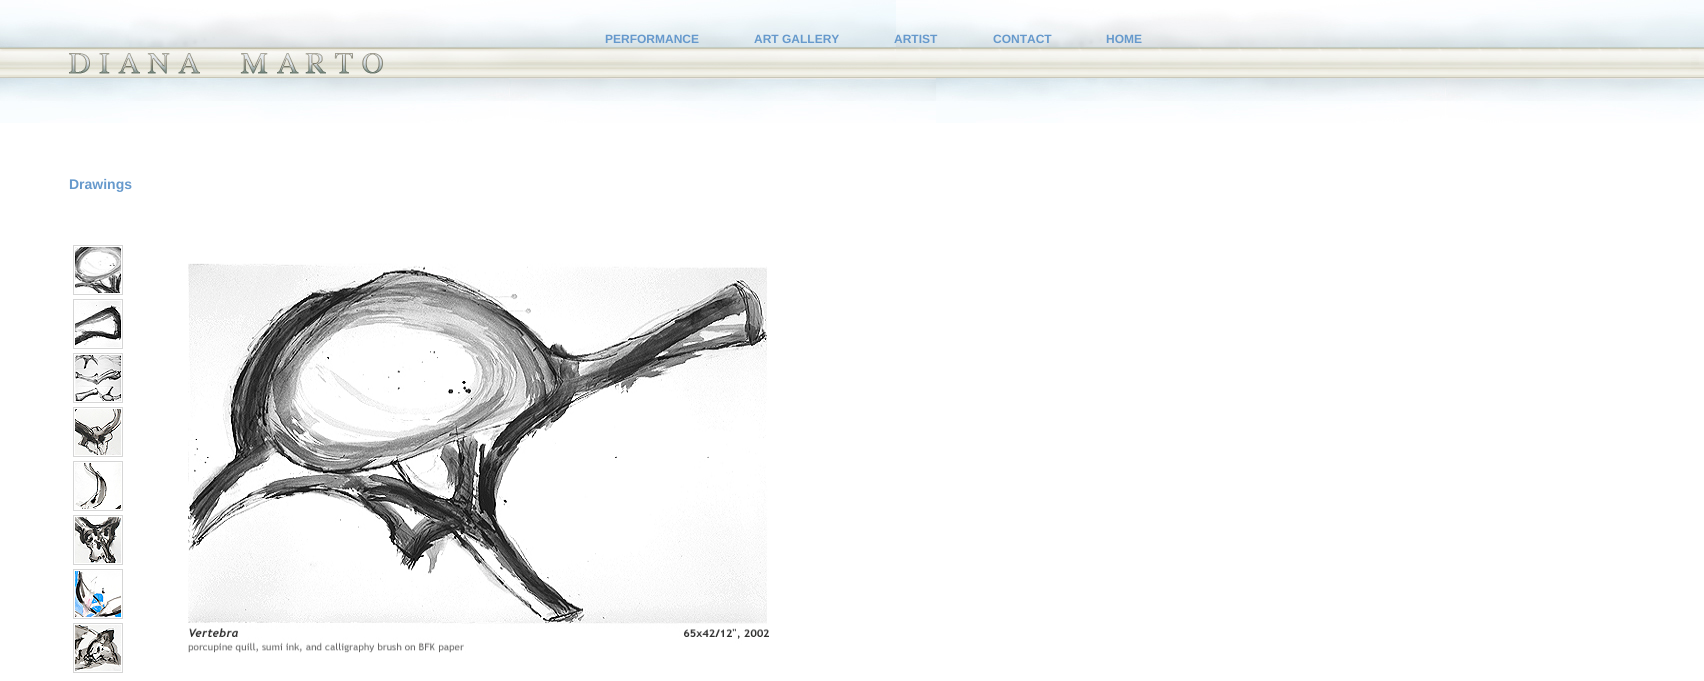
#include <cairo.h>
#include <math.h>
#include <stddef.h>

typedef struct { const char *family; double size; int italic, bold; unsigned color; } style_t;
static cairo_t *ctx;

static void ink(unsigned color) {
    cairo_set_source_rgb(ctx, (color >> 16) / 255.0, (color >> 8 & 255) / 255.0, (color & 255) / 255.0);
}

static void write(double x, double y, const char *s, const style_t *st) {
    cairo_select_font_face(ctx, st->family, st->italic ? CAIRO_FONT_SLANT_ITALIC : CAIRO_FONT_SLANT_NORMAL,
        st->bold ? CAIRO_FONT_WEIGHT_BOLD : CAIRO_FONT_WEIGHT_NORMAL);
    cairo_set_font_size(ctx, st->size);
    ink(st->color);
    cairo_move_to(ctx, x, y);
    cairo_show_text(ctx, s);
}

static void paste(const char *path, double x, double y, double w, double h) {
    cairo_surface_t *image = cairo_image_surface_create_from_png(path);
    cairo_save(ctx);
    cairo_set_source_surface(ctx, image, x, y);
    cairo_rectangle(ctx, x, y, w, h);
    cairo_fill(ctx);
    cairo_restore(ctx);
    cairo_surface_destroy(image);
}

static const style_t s1 = {"Liberation Sans", 12, 0, 1, 0x6699cc};
static const style_t s2 = {"Liberation Sans", 14, 0, 1, 0x6699cc};

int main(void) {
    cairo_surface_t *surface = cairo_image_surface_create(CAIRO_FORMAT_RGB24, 1704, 681);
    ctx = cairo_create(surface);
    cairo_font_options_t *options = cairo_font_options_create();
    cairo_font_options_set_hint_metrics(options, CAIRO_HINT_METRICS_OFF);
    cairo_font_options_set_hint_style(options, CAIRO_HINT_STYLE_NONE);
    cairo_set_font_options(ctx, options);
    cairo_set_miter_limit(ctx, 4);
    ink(0xffffff);
    cairo_paint(ctx);
    paste("pic1.png", 0, 0, 1704, 123);
    paste("pic2.png", 129, 0, 1575, 47);
    write(605, 43, "PERFORMANCE", &s1);
    write(754, 43, "ART GALLERY", &s1);
    write(894, 43, "ARTIST", &s1);
    write(993, 43, "CONTACT", &s1);
    write(1106, 43, "HOME", &s1);
    paste("pic3.png", 896, 47, 795, 31);
    paste("pic4.png", 0, 47, 896, 31);
    paste("pic5.png", 1699, 47, 5, 18);
    write(69, 189, "Drawings", &s2);
    paste("pic6.png", 73, 245, 50, 50);
    paste("pic7.png", 73, 299, 50, 50);
    paste("pic8.png", 73, 353, 50, 50);
    paste("pic9.png", 73, 407, 50, 50);
    paste("pic10.png", 73, 461, 50, 50);
    paste("pic11.png", 73, 515, 50, 50);
    paste("pic12.png", 73, 569, 50, 50);
    paste("pic13.png", 73, 623, 50, 50);
    paste("pic14.png", 188, 263, 581, 390);
    cairo_surface_write_to_png(surface, "screenshot.png");
    cairo_font_options_destroy(options);
    cairo_destroy(ctx);
    cairo_surface_destroy(surface);
    return 0;
}
